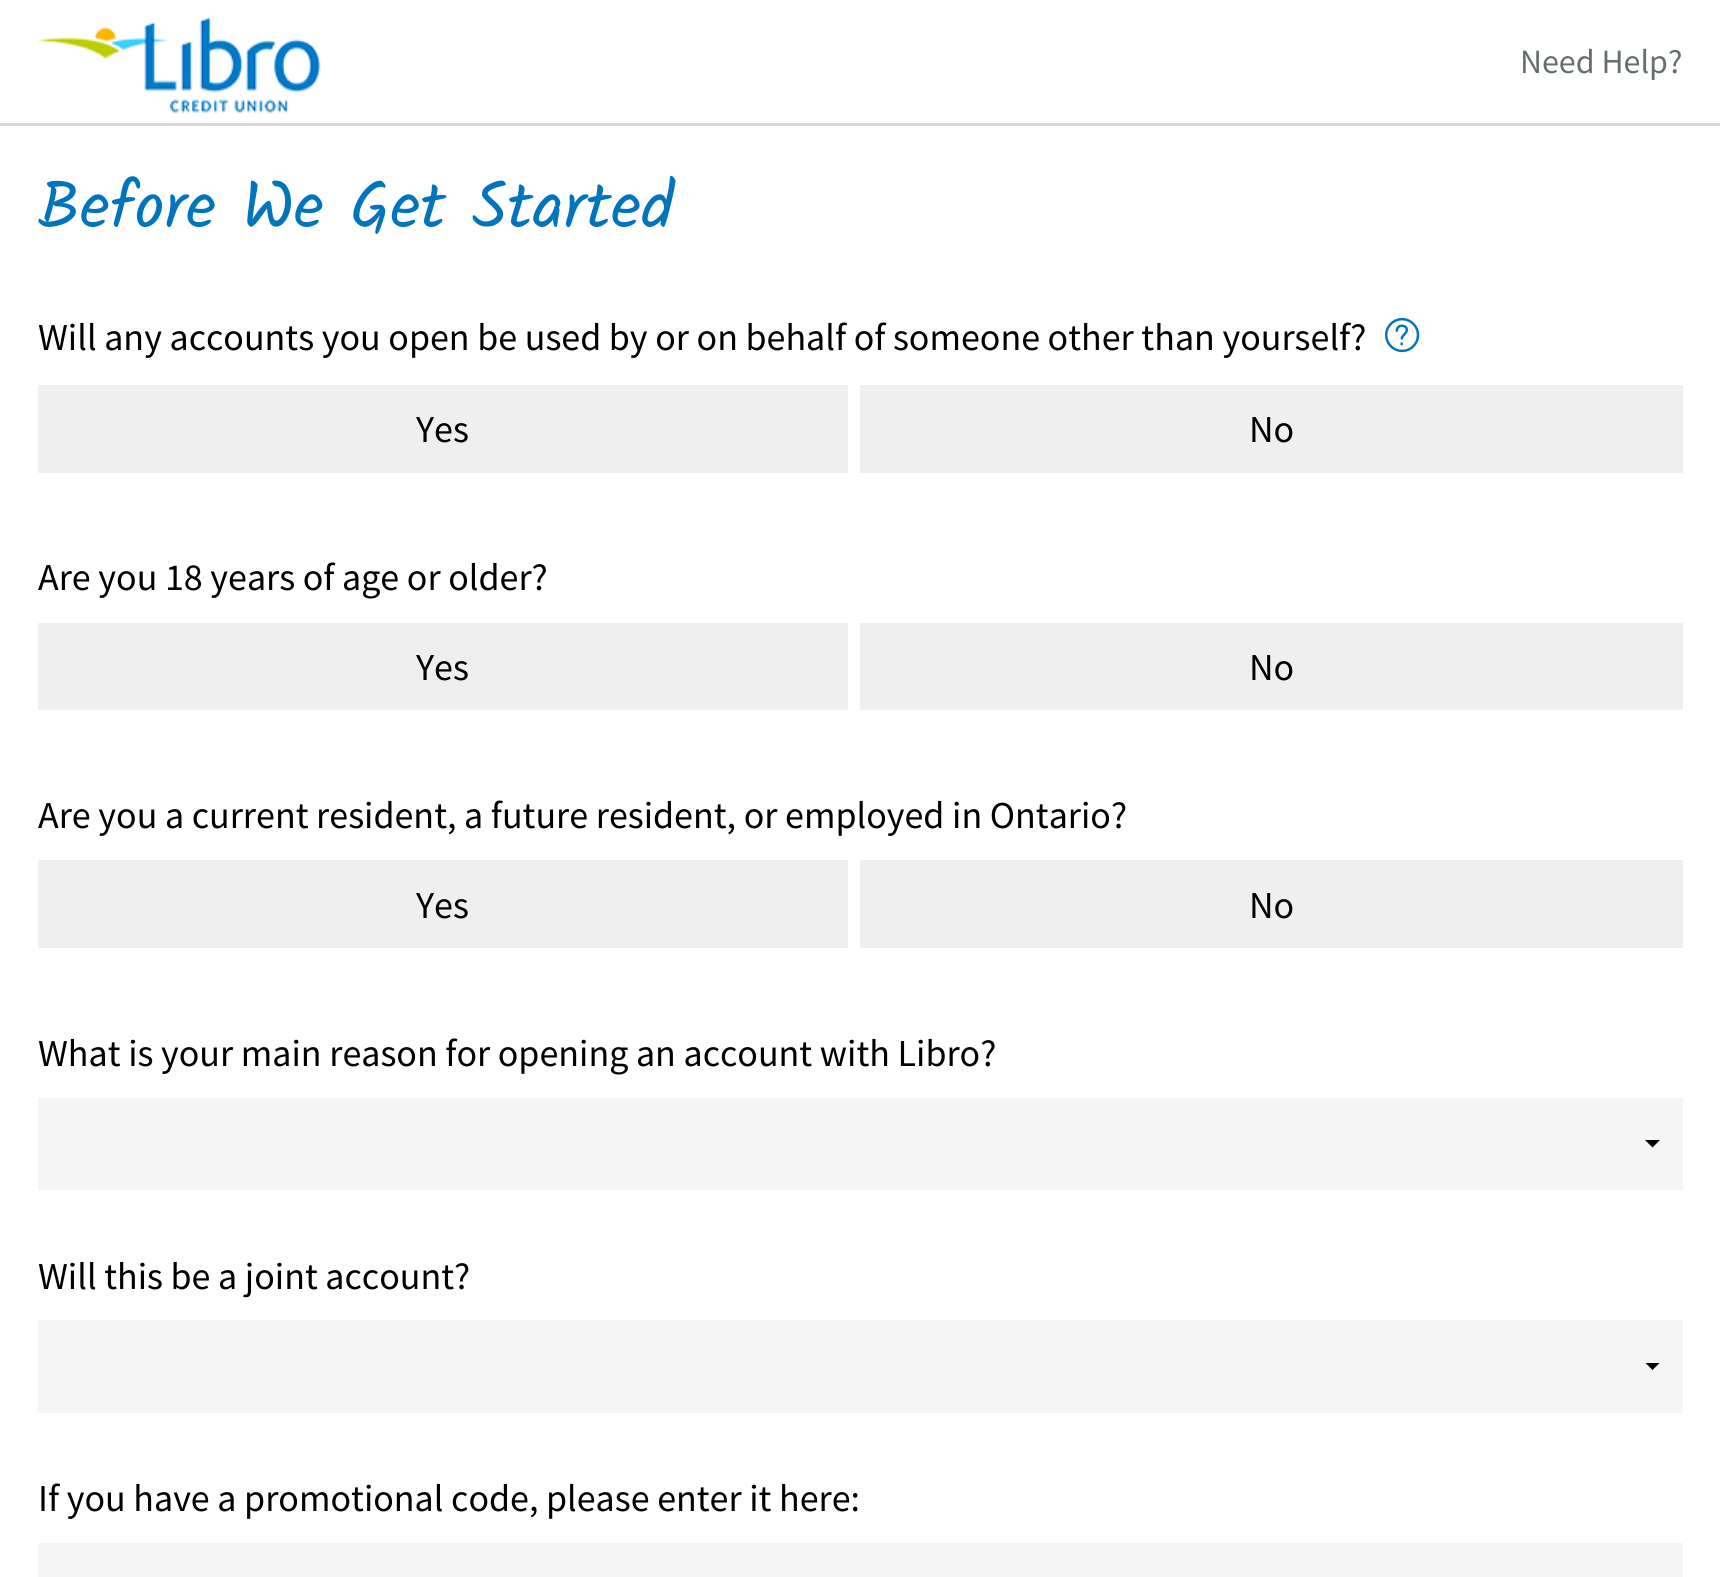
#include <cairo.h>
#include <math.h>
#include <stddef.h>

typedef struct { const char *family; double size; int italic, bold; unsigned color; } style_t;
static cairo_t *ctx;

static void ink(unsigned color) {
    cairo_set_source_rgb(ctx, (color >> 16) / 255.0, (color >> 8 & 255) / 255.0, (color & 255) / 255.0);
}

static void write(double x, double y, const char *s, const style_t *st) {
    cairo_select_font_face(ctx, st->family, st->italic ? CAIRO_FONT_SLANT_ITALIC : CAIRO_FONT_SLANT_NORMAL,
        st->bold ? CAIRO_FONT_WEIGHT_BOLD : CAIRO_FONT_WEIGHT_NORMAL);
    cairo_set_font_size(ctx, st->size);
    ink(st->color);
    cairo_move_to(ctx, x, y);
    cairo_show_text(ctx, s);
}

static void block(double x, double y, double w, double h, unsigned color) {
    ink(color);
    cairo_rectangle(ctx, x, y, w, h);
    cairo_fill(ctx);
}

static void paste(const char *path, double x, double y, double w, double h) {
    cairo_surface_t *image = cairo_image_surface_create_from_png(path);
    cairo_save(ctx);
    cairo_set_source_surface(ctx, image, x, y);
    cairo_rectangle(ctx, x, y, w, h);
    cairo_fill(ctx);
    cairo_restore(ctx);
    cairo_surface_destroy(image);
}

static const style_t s1 = {"Source Sans Pro", 34, 0, 0, 0x666e70};
static const style_t s2 = {"Kalam", 66, 0, 0, 0x0074bd};
static const style_t s3 = {"Source Sans Pro", 38, 0, 0, 0x000000};

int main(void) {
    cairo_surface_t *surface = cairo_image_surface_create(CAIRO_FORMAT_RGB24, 1720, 1577);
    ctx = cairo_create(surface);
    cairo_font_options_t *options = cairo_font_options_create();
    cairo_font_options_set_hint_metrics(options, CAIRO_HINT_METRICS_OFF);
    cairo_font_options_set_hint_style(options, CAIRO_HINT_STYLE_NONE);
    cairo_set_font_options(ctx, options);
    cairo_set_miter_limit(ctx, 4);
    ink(0xffffff);
    cairo_paint(ctx);
    block(0, 123, 1720, 3, 0xd8d8d8);
    paste("pic1.png", 38, 17, 283, 97);
    write(1520, 73, "Need Help?", &s1);
    write(38, 228, "Before We Get Started", &s2);
    write(38, 350, "Will any accounts you open be used by or on behalf of someone other than yourself?", &s3);
    paste("pic2.png", 1385, 317, 35, 36);
    block(38, 385, 810, 88, 0xefefef);
    write(416, 442, "Yes", &s3);
    block(860, 385, 823, 88, 0xefefef);
    write(1249, 442, "No", &s3);
    write(38, 590, "Are you 18 years of age or older?", &s3);
    block(38, 623, 810, 87, 0xefefef);
    write(416, 680, "Yes", &s3);
    block(860, 623, 823, 87, 0xefefef);
    write(1249, 680, "No", &s3);
    write(38, 828, "Are you a current resident, a future resident, or employed in Ontario?", &s3);
    block(38, 860, 810, 88, 0xefefef);
    write(416, 918, "Yes", &s3);
    block(860, 860, 823, 88, 0xefefef);
    write(1249, 918, "No", &s3);
    write(38, 1066, "What is your main reason for opening an account with Libro?", &s3);
    block(38, 1098, 1645, 92, 0xf5f5f5);
    ink(0x000000);
    cairo_new_path(ctx);
    cairo_move_to(ctx, 1660, 1140);
    cairo_line_to(ctx, 1652.5, 1147.5);
    cairo_line_to(ctx, 1645, 1140);
    cairo_close_path(ctx);
    cairo_fill(ctx);
    write(38, 1289, "Will this be a joint account?", &s3);
    block(38, 1320, 1645, 93, 0xf5f5f5);
    cairo_save(ctx);
    cairo_rectangle(ctx, 1623, 1363, 60, 8);
    cairo_clip(ctx);
    ink(0x000000);
    cairo_new_path(ctx);
    cairo_move_to(ctx, 1660, 1362.5);
    cairo_line_to(ctx, 1652.5, 1370);
    cairo_line_to(ctx, 1645, 1362.5);
    cairo_close_path(ctx);
    cairo_fill(ctx);
    cairo_restore(ctx);
    write(38, 1511, "If you have a promotional code, please enter it here:", &s3);
    block(38, 1543, 1645, 34, 0xf5f5f5);
    cairo_surface_write_to_png(surface, "screenshot.png");
    cairo_font_options_destroy(options);
    cairo_destroy(ctx);
    cairo_surface_destroy(surface);
    return 0;
}
